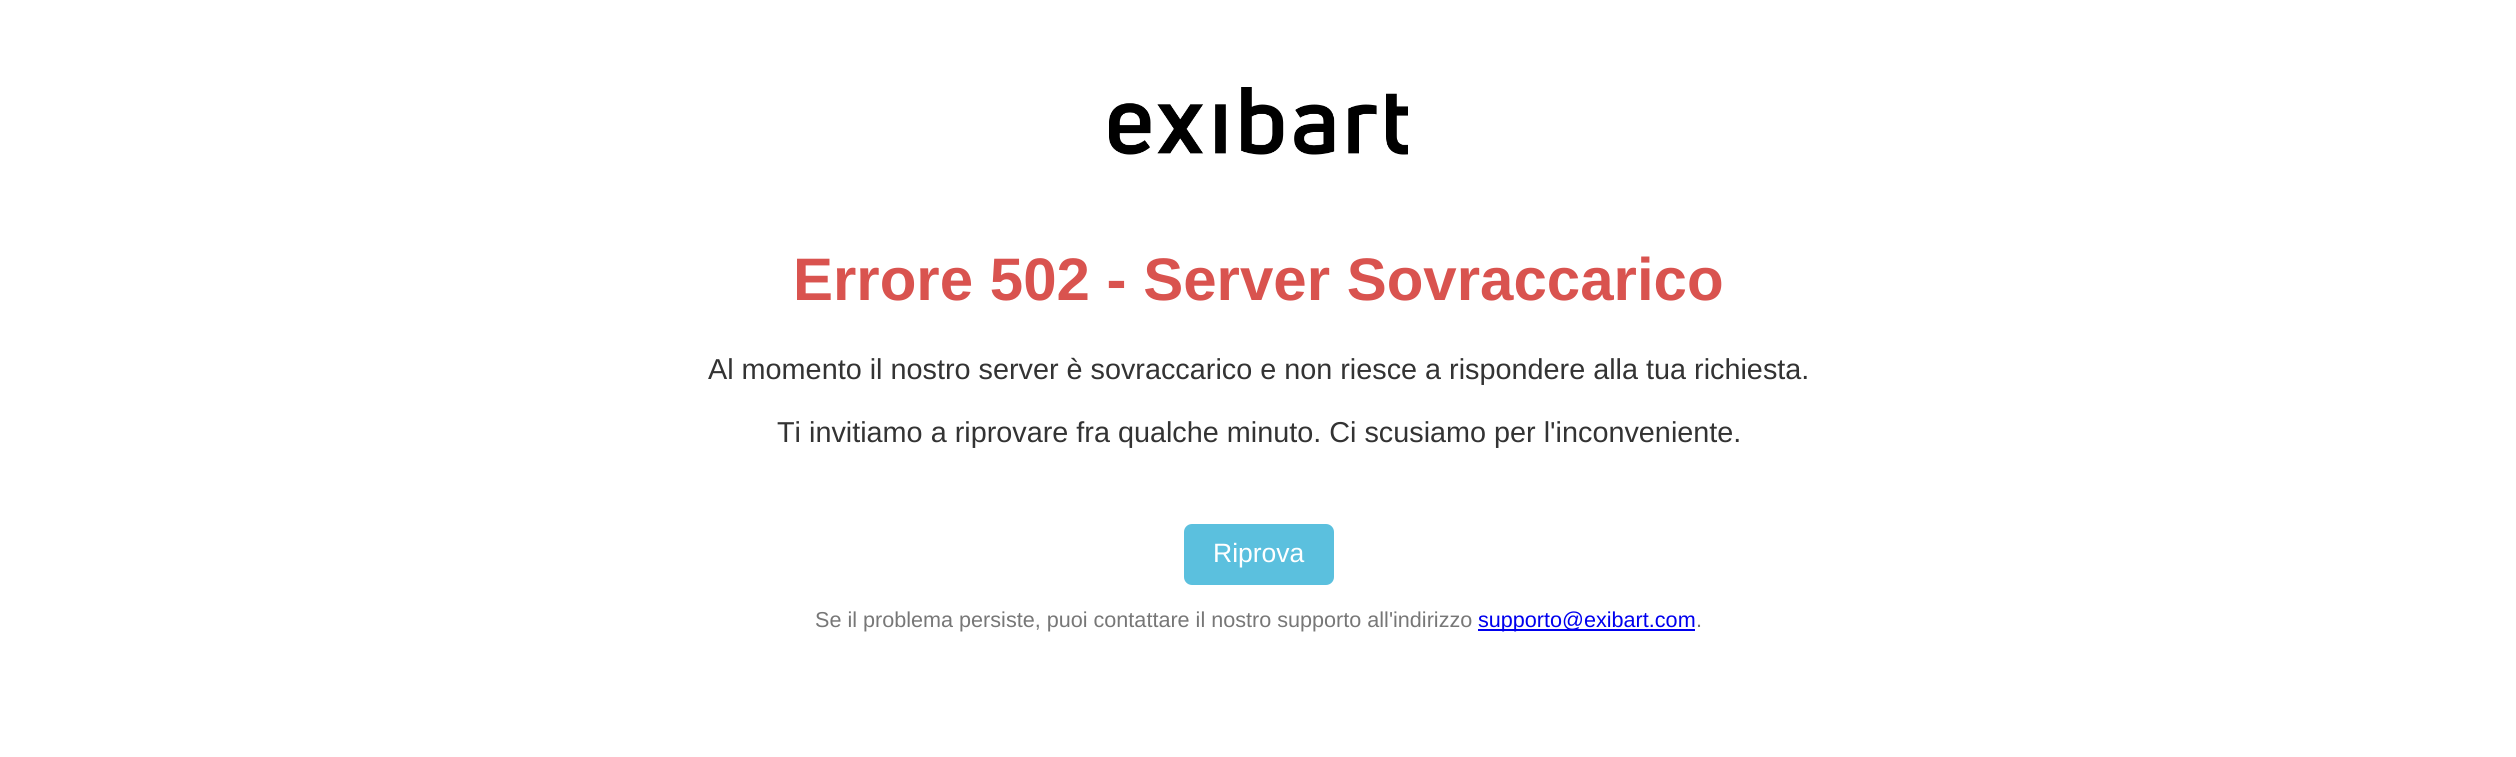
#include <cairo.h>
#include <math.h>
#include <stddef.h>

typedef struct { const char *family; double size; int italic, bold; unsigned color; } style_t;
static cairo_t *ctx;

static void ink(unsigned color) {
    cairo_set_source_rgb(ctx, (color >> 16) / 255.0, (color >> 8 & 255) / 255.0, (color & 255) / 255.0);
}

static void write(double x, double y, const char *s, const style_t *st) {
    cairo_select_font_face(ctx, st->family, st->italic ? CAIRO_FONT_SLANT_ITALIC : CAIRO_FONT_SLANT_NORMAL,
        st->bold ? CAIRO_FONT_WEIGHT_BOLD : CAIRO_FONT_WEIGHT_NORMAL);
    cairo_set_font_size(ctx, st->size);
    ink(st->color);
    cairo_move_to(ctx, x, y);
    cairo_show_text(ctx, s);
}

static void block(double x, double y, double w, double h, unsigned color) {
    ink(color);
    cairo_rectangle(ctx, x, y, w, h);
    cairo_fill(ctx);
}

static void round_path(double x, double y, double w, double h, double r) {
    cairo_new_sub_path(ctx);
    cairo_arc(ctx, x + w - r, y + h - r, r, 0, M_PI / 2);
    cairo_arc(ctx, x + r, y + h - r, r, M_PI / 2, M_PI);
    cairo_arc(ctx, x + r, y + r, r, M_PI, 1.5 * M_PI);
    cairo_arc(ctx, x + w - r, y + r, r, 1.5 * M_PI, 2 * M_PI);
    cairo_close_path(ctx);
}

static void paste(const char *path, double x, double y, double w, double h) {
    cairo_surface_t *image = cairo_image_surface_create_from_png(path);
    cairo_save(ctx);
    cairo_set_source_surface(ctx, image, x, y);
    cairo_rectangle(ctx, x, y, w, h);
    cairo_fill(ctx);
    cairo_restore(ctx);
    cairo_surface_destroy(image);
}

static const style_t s1 = {"Liberation Sans", 60, 0, 1, 0xd9534f};
static const style_t s2 = {"Liberation Sans", 28.8, 0, 0, 0x333333};
static const style_t s3 = {"Liberation Sans", 26.5, 0, 0, 0xffffff};
static const style_t s4 = {"Liberation Sans", 21.6, 0, 0, 0x777777};
static const style_t s5 = {"Liberation Sans", 21.6, 0, 0, 0x0000ee};

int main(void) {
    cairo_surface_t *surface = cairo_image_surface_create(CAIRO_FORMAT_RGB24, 2516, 757);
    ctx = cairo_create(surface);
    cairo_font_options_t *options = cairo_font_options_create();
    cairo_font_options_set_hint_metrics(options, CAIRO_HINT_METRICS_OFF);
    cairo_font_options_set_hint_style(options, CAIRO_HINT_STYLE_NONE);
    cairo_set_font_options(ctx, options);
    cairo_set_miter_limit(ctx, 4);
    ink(0xffffff);
    cairo_paint(ctx);
    paste("pic1.png", 1109, 87, 299, 68);
    write(793, 300, "Errore 502 - Server Sovraccarico", &s1);
    write(708, 379, "Al momento il nostro server è sovraccarico e non riesce a rispondere alla tua richiesta.", &s2);
    write(777, 442, "Ti invitiamo a riprovare fra qualche minuto. Ci scusiamo per l'inconveniente.", &s2);
    ink(0x5bc0de);
    round_path(1184, 524, 150, 61, 8);
    cairo_fill(ctx);
    write(1213, 562, "Riprova", &s3);
    write(815, 627, "Se il problema persiste, puoi contattare il nostro supporto all'indirizzo", &s4);
    block(1478, 629, 217, 2, 0x0000ee);
    write(1478, 627, "supporto@exibart.com", &s5);
    write(1696, 627, ".", &s4);
    cairo_surface_write_to_png(surface, "screenshot.png");
    cairo_font_options_destroy(options);
    cairo_destroy(ctx);
    cairo_surface_destroy(surface);
    return 0;
}
